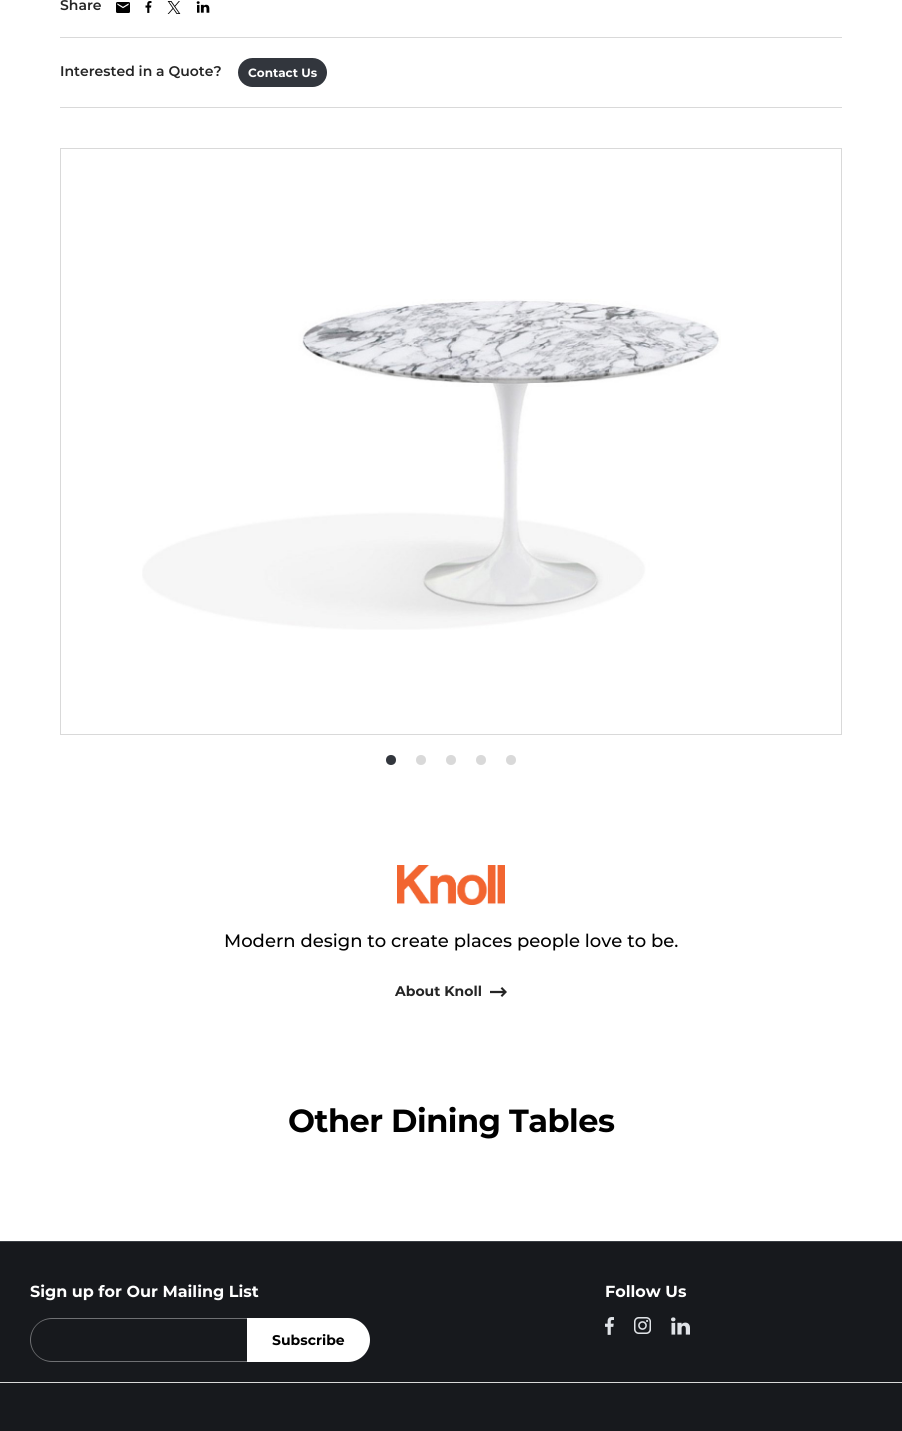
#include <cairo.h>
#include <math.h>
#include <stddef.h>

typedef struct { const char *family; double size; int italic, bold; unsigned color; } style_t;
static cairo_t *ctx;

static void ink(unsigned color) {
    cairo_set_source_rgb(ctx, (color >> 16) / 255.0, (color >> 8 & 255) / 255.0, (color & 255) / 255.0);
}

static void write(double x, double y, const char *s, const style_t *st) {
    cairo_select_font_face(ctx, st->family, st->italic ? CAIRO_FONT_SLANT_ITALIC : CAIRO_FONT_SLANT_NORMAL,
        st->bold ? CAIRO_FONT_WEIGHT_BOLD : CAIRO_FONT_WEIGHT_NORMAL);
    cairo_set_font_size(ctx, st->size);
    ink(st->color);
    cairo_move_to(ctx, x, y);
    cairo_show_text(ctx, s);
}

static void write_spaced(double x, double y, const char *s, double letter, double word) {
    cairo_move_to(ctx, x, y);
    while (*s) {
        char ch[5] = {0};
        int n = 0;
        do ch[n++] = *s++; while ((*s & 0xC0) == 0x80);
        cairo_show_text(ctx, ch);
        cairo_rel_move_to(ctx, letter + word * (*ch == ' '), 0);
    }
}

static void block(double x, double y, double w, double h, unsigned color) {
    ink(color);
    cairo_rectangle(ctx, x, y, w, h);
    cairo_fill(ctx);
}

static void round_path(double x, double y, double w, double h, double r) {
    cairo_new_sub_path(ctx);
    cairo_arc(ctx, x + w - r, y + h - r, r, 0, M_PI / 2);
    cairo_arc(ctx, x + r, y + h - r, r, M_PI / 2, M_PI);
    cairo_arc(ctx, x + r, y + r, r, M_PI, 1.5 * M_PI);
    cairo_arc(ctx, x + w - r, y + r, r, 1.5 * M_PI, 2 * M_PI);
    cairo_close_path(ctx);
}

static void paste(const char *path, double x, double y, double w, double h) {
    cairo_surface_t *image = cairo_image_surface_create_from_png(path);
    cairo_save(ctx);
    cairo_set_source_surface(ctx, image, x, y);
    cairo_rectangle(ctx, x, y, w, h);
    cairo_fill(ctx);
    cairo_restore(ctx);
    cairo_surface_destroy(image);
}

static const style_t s1 = {"Montserrat SemiBold", 14, 0, 0, 0x252525};
static const style_t s2 = {"Montserrat", 12, 0, 1, 0xffffff};
static const style_t s3 = {"Montserrat Medium", 18, 0, 0, 0x000000};
static const style_t s4 = {"Montserrat", 14, 0, 1, 0x252525};
static const style_t s5 = {"Montserrat", 16, 0, 1, 0xffffff};
static const style_t s6 = {"Montserrat", 14, 0, 1, 0x000000};

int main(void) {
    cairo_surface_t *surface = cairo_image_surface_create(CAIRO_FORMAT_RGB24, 902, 1431);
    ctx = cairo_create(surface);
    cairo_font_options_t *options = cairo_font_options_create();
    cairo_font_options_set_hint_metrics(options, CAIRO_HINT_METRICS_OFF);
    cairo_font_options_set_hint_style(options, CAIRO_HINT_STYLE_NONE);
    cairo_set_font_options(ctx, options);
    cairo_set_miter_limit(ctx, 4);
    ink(0xffffff);
    cairo_paint(ctx);
    block(60, 107, 782, 1, 0xd9d9d9);
    write(60, 10, "Share", &s1);
    paste("pic1.png", 116, 2, 14, 11);
    paste("pic2.png", 145, 1, 7, 12);
    paste("pic3.png", 167, 1, 14, 13);
    paste("pic4.png", 196, 1, 14, 12);
    block(60, 37, 782, 1, 0xd9d9d9);
    write(60, 76, "Interested in a Quote?", &s1);
    ink(0x32363d);
    round_path(238, 58, 89, 29, 14.5);
    cairo_fill(ctx);
    write(248, 77, "Contact Us", &s2);
    cairo_rectangle(ctx, 60.5, 148.5, 781, 586);
    ink(0xd9d9d9);
    cairo_set_line_width(ctx, 1);
    cairo_stroke(ctx);
    paste("pic5.png", 142, 299, 579, 331);
    ink(0x32363d);
    cairo_arc(ctx, 391, 760, 5, 0, 2 * M_PI);
    cairo_fill(ctx);
    ink(0xd9d9d9);
    cairo_arc(ctx, 421, 760, 5, 0, 2 * M_PI);
    cairo_fill(ctx);
    cairo_arc(ctx, 451, 760, 5, 0, 2 * M_PI);
    cairo_fill(ctx);
    cairo_arc(ctx, 481, 760, 5, 0, 2 * M_PI);
    cairo_fill(ctx);
    cairo_arc(ctx, 511, 760, 5, 0, 2 * M_PI);
    cairo_fill(ctx);
    paste("pic6.png", 397, 865, 108, 40);
    write(224, 947, "Modern design to create places people love to be.", &s3);
    write(395, 996, "About Knoll", &s4);
    paste("pic7.png", 490, 987, 17, 10);
    cairo_set_font_size(ctx, 32);
    ink(0x000000);
    write_spaced(288, 1132, "Other Dining Tables", -0.5, 0);
    block(0, 1242, 902, 189, 0x17191d);
    block(0, 1241, 902, 1, 0x393d43);
    block(0, 1382, 902, 1, 0xd9d9d9);
    write(30, 1297, "Sign up for Our Mailing List", &s5);
    ink(0x6f7073);
    cairo_set_fill_rule(ctx, CAIRO_FILL_RULE_EVEN_ODD);
    cairo_new_path(ctx);
    cairo_move_to(ctx, 52, 1318);
    cairo_line_to(ctx, 247, 1318);
    cairo_line_to(ctx, 247, 1362);
    cairo_line_to(ctx, 52, 1362);
    cairo_curve_to(ctx, 40, 1362, 30, 1352, 30, 1340);
    cairo_curve_to(ctx, 30, 1328, 40, 1318, 52, 1318);
    cairo_close_path(ctx);
    cairo_move_to(ctx, 52, 1319);
    cairo_line_to(ctx, 247, 1319);
    cairo_line_to(ctx, 247, 1361);
    cairo_line_to(ctx, 52, 1361);
    cairo_curve_to(ctx, 40, 1361, 31, 1352, 31, 1340);
    cairo_curve_to(ctx, 31, 1328, 40, 1319, 52, 1319);
    cairo_close_path(ctx);
    cairo_fill(ctx);
    ink(0xffffff);
    cairo_new_path(ctx);
    cairo_move_to(ctx, 247, 1318);
    cairo_line_to(ctx, 348, 1318);
    cairo_curve_to(ctx, 360, 1318, 370, 1328, 370, 1340);
    cairo_curve_to(ctx, 370, 1352, 360, 1362, 348, 1362);
    cairo_line_to(ctx, 247, 1362);
    cairo_close_path(ctx);
    cairo_fill(ctx);
    write(272, 1345, "Subscribe", &s6);
    write(605, 1297, "Follow Us", &s5);
    paste("pic8.png", 605, 1317, 9, 18);
    paste("pic9.png", 634, 1317, 17, 17);
    paste("pic10.png", 671, 1317, 19, 18);
    cairo_surface_write_to_png(surface, "screenshot.png");
    cairo_font_options_destroy(options);
    cairo_destroy(ctx);
    cairo_surface_destroy(surface);
    return 0;
}
